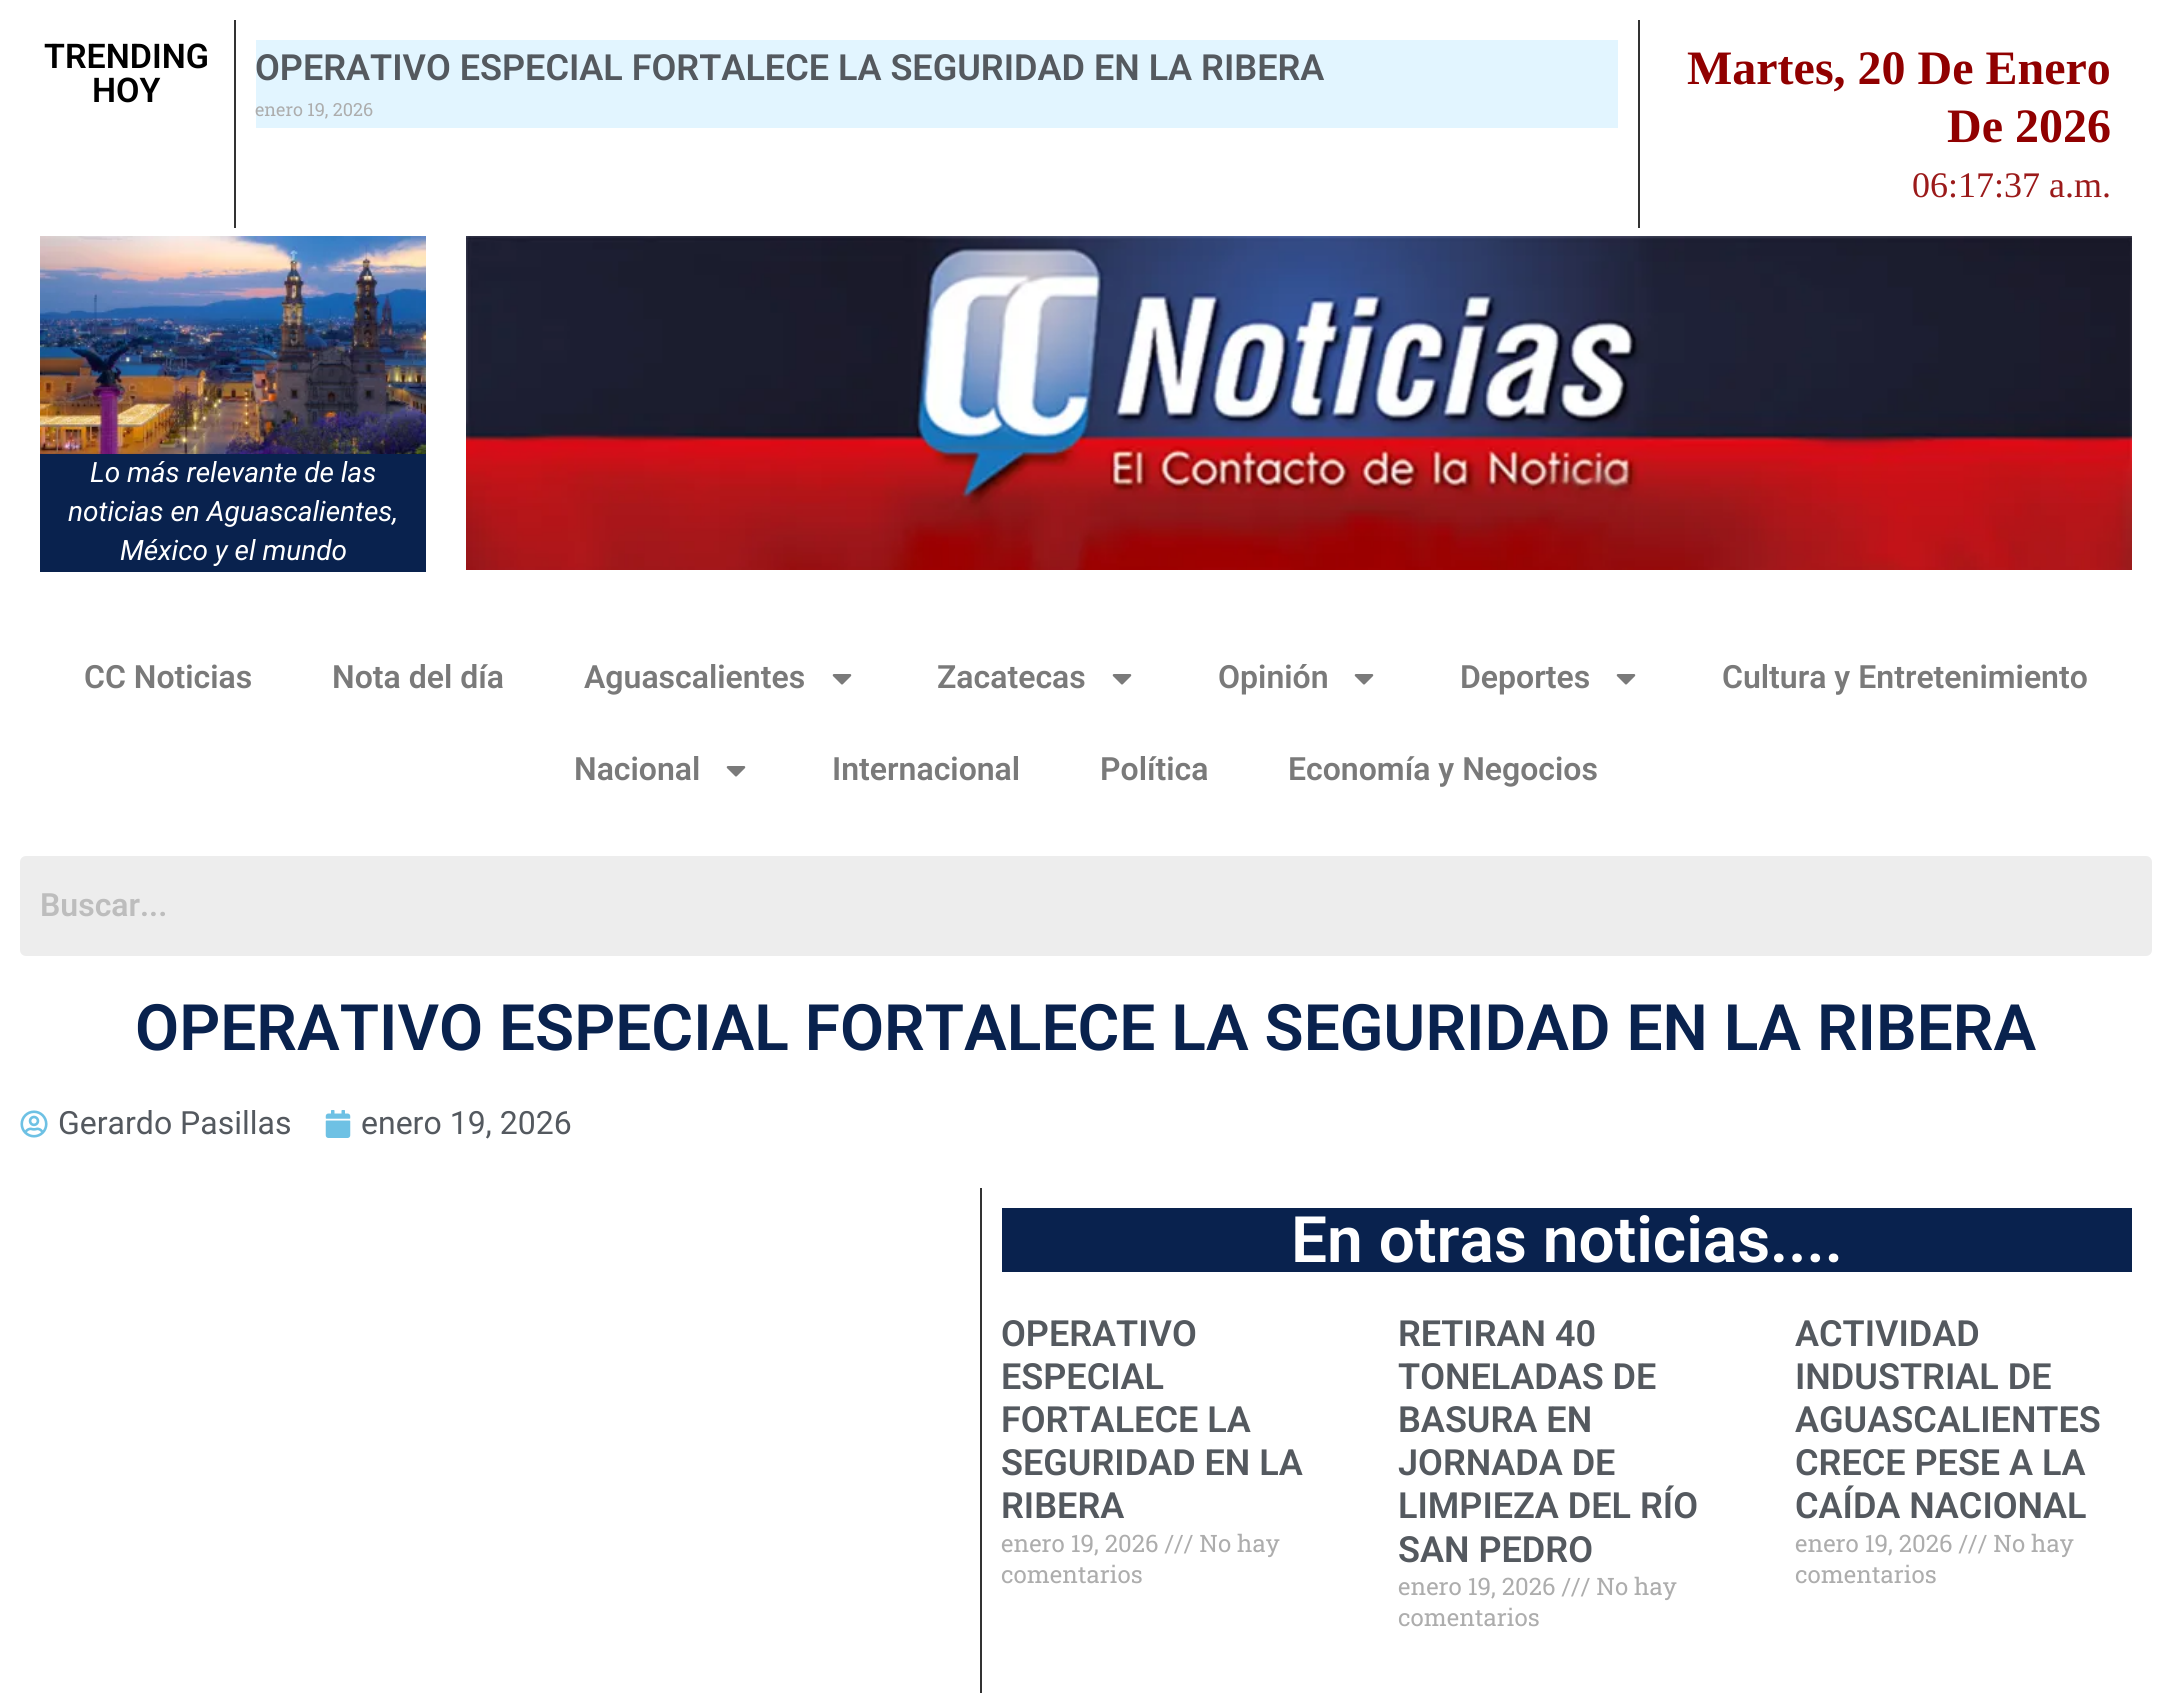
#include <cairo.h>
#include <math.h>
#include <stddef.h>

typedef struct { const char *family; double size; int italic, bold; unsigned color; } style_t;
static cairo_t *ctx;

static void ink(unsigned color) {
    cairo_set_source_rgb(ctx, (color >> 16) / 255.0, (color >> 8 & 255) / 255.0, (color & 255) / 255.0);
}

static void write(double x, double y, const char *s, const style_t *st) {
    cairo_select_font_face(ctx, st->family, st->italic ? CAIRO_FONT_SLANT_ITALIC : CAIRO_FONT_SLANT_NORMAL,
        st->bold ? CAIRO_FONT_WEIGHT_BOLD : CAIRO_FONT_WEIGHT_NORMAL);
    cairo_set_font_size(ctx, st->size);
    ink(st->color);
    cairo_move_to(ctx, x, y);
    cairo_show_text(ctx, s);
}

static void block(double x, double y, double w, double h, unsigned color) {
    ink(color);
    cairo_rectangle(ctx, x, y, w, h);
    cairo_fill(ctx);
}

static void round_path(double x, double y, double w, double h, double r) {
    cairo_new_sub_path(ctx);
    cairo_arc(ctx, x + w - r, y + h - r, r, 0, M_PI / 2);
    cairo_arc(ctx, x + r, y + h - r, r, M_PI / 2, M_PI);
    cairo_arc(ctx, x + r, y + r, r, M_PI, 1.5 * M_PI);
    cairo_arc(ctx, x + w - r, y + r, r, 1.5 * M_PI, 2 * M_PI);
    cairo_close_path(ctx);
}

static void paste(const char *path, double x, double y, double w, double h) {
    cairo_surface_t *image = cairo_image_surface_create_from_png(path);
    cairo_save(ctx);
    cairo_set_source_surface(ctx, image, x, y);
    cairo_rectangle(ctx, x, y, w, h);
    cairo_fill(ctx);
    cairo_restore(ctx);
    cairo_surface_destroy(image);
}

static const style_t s1 = {"Roboto SemiBold", 34, 0, 0, 0x000000};
static const style_t s2 = {"Roboto SemiBold", 36, 0, 0, 0x54595f};
static const style_t s3 = {"Roboto Slab", 18, 0, 0, 0xadadad};
static const style_t s4 = {"Liberation Serif", 48, 0, 1, 0x900000};
static const style_t s5 = {"Liberation Serif", 36, 0, 0, 0x9b1a1a};
static const style_t s6 = {"Roboto", 28, 1, 0, 0xffffff};
static const style_t s7 = {"Roboto SemiBold", 32, 0, 0, 0x7a7a7a};
static const style_t s8 = {"Roboto SemiBold", 32, 0, 0, 0xbdbdbd};
static const style_t s9 = {"Roboto SemiBold", 64, 0, 0, 0x09224e};
static const style_t s10 = {"Roboto", 32, 0, 0, 0x54595f};
static const style_t s11 = {"Roboto SemiBold", 64, 0, 0, 0xffffff};
static const style_t s12 = {"Roboto Slab", 24, 0, 0, 0xadadad};

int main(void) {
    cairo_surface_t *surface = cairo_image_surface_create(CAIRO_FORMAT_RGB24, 2171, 1693);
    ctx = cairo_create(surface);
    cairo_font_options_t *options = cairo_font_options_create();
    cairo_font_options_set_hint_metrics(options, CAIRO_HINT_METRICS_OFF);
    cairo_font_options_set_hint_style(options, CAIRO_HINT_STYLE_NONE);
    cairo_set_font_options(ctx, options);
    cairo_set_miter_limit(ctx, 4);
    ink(0xffffff);
    cairo_paint(ctx);
    write(44, 68, "TRENDING", &s1);
    write(92, 102, "HOY", &s1);
    block(1638, 20, 2, 208, 0x333333);
    block(234, 20, 2, 208, 0x333333);
    block(256, 40, 1362, 88, 0xe2f5ff);
    write(255, 80, "OPERATIVO ESPECIAL FORTALECE LA SEGURIDAD EN LA RIBERA", &s2);
    write(255, 116, "enero 19, 2026", &s3);
    write(1687, 84, "Martes, 20 De Enero", &s4);
    write(1947, 142, "De 2026", &s4);
    write(1912, 197, "06:17:37 a.m.", &s5);
    block(40, 454, 386, 118, 0x09224e);
    paste("pic1.png", 40, 236, 386, 218);
    write(90, 482, "Lo más relevante de las", &s6);
    write(68, 521, "noticias en Aguascalientes,", &s6);
    write(120, 560, "México y el mundo", &s6);
    paste("pic2.png", 466, 236, 1666, 334);
    write(84, 688, "CC Noticias", &s7);
    write(332, 688, "Nota del día", &s7);
    write(584, 688, "Aguascalientes", &s7);
    paste("pic3.png", 832, 674, 20, 11);
    write(937, 688, "Zacatecas", &s7);
    paste("pic3.png", 1112, 674, 20, 11);
    write(1218, 688, "Opinión", &s7);
    paste("pic3.png", 1354, 674, 20, 11);
    write(1460, 688, "Deportes", &s7);
    paste("pic3.png", 1616, 674, 20, 11);
    write(1722, 688, "Cultura y Entretenimiento", &s7);
    write(574, 780, "Nacional", &s7);
    paste("pic3.png", 726, 766, 20, 11);
    write(832, 780, "Internacional", &s7);
    write(1100, 780, "Política", &s7);
    write(1288, 780, "Economía y Negocios", &s7);
    ink(0xededed);
    round_path(20, 856, 2132, 100, 6);
    cairo_fill(ctx);
    write(40, 916, "Buscar...", &s8);
    write(135, 1050, "OPERATIVO ESPECIAL FORTALECE LA SEGURIDAD EN LA RIBERA", &s9);
    paste("pic4.png", 20, 1110, 28, 28);
    write(58, 1134, "Gerardo Pasillas", &s10);
    paste("pic5.png", 325, 1110, 26, 28);
    write(361, 1134, "enero 19, 2026", &s10);
    block(980, 1188, 2, 505, 0x333333);
    block(1002, 1208, 1130, 64, 0x09224e);
    write(1291, 1262, "En otras noticias....", &s11);
    write(1001, 1346, "OPERATIVO", &s2);
    write(1001, 1389, "ESPECIAL", &s2);
    write(1001, 1432, "FORTALECE LA", &s2);
    write(1001, 1475, "SEGURIDAD EN LA", &s2);
    write(1001, 1518, "RIBERA", &s2);
    write(1001, 1552, "enero 19, 2026 /// No hay", &s12);
    write(1001, 1583, "comentarios", &s12);
    write(1398, 1346, "RETIRAN 40", &s2);
    write(1398, 1389, "TONELADAS DE", &s2);
    write(1398, 1432, "BASURA EN", &s2);
    write(1398, 1475, "JORNADA DE", &s2);
    write(1398, 1518, "LIMPIEZA DEL RÍO", &s2);
    write(1398, 1562, "SAN PEDRO", &s2);
    write(1398, 1595, "enero 19, 2026 /// No hay", &s12);
    write(1398, 1626, "comentarios", &s12);
    write(1795, 1346, "ACTIVIDAD", &s2);
    write(1795, 1389, "INDUSTRIAL DE", &s2);
    write(1795, 1432, "AGUASCALIENTES", &s2);
    write(1795, 1475, "CRECE PESE A LA", &s2);
    write(1795, 1518, "CAÍDA NACIONAL", &s2);
    write(1795, 1552, "enero 19, 2026 /// No hay", &s12);
    write(1795, 1583, "comentarios", &s12);
    cairo_surface_write_to_png(surface, "screenshot.png");
    cairo_font_options_destroy(options);
    cairo_destroy(ctx);
    cairo_surface_destroy(surface);
    return 0;
}
